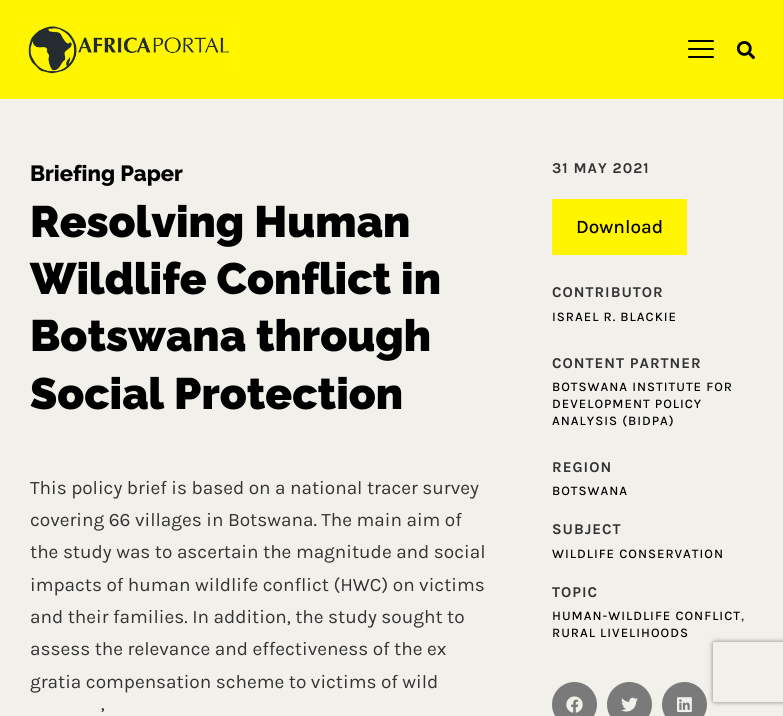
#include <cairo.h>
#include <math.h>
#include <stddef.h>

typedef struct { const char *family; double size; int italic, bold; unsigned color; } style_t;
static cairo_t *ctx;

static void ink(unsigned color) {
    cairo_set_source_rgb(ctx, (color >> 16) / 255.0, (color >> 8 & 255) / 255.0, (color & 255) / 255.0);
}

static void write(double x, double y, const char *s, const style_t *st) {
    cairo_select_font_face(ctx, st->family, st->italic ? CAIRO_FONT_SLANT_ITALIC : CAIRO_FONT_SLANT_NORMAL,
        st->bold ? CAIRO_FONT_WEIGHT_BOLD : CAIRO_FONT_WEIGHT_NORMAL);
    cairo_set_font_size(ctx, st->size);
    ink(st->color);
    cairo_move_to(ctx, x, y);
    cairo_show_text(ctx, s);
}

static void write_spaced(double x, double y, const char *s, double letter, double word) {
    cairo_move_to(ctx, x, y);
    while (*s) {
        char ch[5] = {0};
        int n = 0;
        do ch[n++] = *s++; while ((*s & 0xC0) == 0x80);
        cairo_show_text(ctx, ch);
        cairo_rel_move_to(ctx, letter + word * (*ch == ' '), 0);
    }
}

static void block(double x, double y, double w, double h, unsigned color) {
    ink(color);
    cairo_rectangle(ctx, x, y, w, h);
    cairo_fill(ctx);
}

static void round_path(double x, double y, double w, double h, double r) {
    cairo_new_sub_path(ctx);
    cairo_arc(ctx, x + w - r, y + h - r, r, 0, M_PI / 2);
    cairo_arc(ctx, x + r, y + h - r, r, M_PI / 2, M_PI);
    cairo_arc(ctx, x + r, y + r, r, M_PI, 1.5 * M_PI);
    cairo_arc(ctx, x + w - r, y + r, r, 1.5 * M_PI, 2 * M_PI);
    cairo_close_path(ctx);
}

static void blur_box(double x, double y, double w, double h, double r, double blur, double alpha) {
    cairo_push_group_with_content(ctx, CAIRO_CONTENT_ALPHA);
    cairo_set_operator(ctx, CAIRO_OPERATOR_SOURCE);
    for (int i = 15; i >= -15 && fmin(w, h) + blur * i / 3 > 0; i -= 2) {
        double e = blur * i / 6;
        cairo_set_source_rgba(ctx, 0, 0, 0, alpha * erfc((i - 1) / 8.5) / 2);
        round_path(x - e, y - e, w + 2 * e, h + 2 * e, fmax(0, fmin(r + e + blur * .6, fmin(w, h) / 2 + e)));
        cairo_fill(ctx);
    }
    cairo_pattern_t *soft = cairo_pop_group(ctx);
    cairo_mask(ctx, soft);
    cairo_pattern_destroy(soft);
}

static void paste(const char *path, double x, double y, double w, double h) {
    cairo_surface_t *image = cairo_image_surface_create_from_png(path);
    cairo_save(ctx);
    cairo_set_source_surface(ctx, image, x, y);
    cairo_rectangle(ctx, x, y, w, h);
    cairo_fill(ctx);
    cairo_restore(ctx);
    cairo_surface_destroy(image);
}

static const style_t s1 = {"Raleway ExtraBold", 22, 0, 0, 0x000000};
static const style_t s2 = {"Raleway Black", 44, 0, 0, 0x000000};
static const style_t s3 = {"Karla", 19, 0, 0, 0x333333};
static const style_t s4 = {"Karla Medium", 19, 0, 0, 0x000000};

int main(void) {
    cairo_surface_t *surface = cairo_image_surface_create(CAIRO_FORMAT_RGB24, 783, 716);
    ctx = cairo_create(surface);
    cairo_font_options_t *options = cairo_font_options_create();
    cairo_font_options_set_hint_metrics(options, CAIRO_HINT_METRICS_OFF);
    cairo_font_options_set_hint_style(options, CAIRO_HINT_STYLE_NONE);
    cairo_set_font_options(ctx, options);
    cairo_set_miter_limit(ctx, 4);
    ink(0xf2f0ea);
    cairo_paint(ctx);
    block(0, 0, 783, 99, 0xfff500);
    paste("pic1.png", 20, 20, 221, 55);
    ink(0x000000);
    round_path(688, 48, 26, 2, 1);
    cairo_fill(ctx);
    round_path(688, 40, 26, 2, 1);
    cairo_fill(ctx);
    round_path(688, 56, 26, 2, 1);
    cairo_fill(ctx);
    paste("pic2.png", 736, 41, 19, 19);
    write(30, 181, "Briefing Paper", &s1);
    write(30, 237, "Resolving Human", &s2);
    write(30, 294, "Wildlife Conflict in", &s2);
    write(30, 351, "Botswana through", &s2);
    write(30, 409, "Social Protection", &s2);
    write(30, 494, "This policy brief is based on a national tracer survey", &s3);
    write(30, 526, "covering 66 villages in Botswana. The main aim of", &s3);
    write(30, 558, "the study was to ascertain the magnitude and social", &s3);
    write(30, 591, "impacts of human wildlife conflict (HWC) on victims", &s3);
    write(30, 623, "and their families. In addition, the study sought to", &s3);
    write(30, 655, "assess the relevance and effectiveness of the ex", &s3);
    write(30, 688, "gratia compensation scheme to victims of wild", &s3);
    write(101, 720, "’", &s3);
    cairo_select_font_face(ctx, "Karla", CAIRO_FONT_SLANT_NORMAL, CAIRO_FONT_WEIGHT_BOLD);
    cairo_set_font_size(ctx, 15);
    write_spaced(552, 173, "31 MAY 2021", 1, 0);
    block(552, 199, 135, 56, 0xfff500);
    write(576, 233, "Download", &s4);
    cairo_select_font_face(ctx, "Karla", CAIRO_FONT_SLANT_NORMAL, CAIRO_FONT_WEIGHT_BOLD);
    cairo_set_font_size(ctx, 15);
    ink(0x333333);
    write_spaced(552, 297, "CONTRIBUTOR", 1, 0);
    cairo_select_font_face(ctx, "Karla Medium", CAIRO_FONT_SLANT_NORMAL, CAIRO_FONT_WEIGHT_NORMAL);
    cairo_set_font_size(ctx, 13);
    ink(0x000000);
    write_spaced(552, 321, "ISRAEL R. BLACKIE", 1, 0);
    cairo_select_font_face(ctx, "Karla", CAIRO_FONT_SLANT_NORMAL, CAIRO_FONT_WEIGHT_BOLD);
    cairo_set_font_size(ctx, 15);
    ink(0x333333);
    write_spaced(552, 368, "CONTENT PARTNER", 1, 0);
    cairo_select_font_face(ctx, "Karla Medium", CAIRO_FONT_SLANT_NORMAL, CAIRO_FONT_WEIGHT_NORMAL);
    cairo_set_font_size(ctx, 13);
    ink(0x000000);
    write_spaced(552, 391, "BOTSWANA INSTITUTE FOR", 1, 0);
    write_spaced(552, 408, "DEVELOPMENT POLICY", 1, 0);
    write_spaced(552, 425, "ANALYSIS (BIDPA)", 1, 0);
    cairo_select_font_face(ctx, "Karla", CAIRO_FONT_SLANT_NORMAL, CAIRO_FONT_WEIGHT_BOLD);
    cairo_set_font_size(ctx, 15);
    ink(0x333333);
    write_spaced(552, 472, "REGION", 1, 0);
    cairo_select_font_face(ctx, "Karla Medium", CAIRO_FONT_SLANT_NORMAL, CAIRO_FONT_WEIGHT_NORMAL);
    cairo_set_font_size(ctx, 13);
    ink(0x000000);
    write_spaced(552, 495, "BOTSWANA", 1, 0);
    cairo_select_font_face(ctx, "Karla", CAIRO_FONT_SLANT_NORMAL, CAIRO_FONT_WEIGHT_BOLD);
    cairo_set_font_size(ctx, 15);
    ink(0x333333);
    write_spaced(552, 534, "SUBJECT", 1, 0);
    cairo_select_font_face(ctx, "Karla Medium", CAIRO_FONT_SLANT_NORMAL, CAIRO_FONT_WEIGHT_NORMAL);
    cairo_set_font_size(ctx, 13);
    ink(0x000000);
    write_spaced(552, 558, "WILDLIFE CONSERVATION", 1, 0);
    cairo_select_font_face(ctx, "Karla", CAIRO_FONT_SLANT_NORMAL, CAIRO_FONT_WEIGHT_BOLD);
    cairo_set_font_size(ctx, 15);
    ink(0x333333);
    write_spaced(552, 597, "TOPIC", 1, 0);
    cairo_select_font_face(ctx, "Karla Medium", CAIRO_FONT_SLANT_NORMAL, CAIRO_FONT_WEIGHT_NORMAL);
    cairo_set_font_size(ctx, 13);
    ink(0x000000);
    write_spaced(552, 620, "HUMAN-WILDLIFE CONFLICT", 1, 0);
    ink(0x333333);
    write_spaced(741, 620, ",", 1, 0);
    ink(0x000000);
    write_spaced(552, 637, "RURAL LIVELIHOODS", 1, 0);
    ink(0x7a7a7a);
    cairo_new_path(ctx);
    cairo_arc(ctx, 574.5, 704.5, 22.5, 0, 2 * M_PI);
    cairo_fill(ctx);
    paste("pic3.png", 566, 696, 17, 17);
    cairo_arc(ctx, 629.5, 704.5, 22.5, 0, 2 * M_PI);
    cairo_fill(ctx);
    paste("pic4.png", 621, 697, 17, 15);
    cairo_arc(ctx, 684.5, 704.5, 22.5, 0, 2 * M_PI);
    cairo_fill(ctx);
    paste("pic5.png", 677, 697, 15, 16);
    cairo_save(ctx);
    cairo_set_fill_rule(ctx, CAIRO_FILL_RULE_EVEN_ODD);
    cairo_new_path(ctx);
    cairo_move_to(ctx, 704, 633);
    cairo_line_to(ctx, 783, 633);
    cairo_line_to(ctx, 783, 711);
    cairo_line_to(ctx, 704, 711);
    cairo_close_path(ctx);
    cairo_move_to(ctx, 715, 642);
    cairo_line_to(ctx, 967, 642);
    cairo_curve_to(ctx, 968, 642, 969, 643, 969, 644);
    cairo_line_to(ctx, 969, 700);
    cairo_curve_to(ctx, 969, 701, 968, 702, 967, 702);
    cairo_line_to(ctx, 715, 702);
    cairo_curve_to(ctx, 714, 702, 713, 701, 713, 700);
    cairo_line_to(ctx, 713, 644);
    cairo_curve_to(ctx, 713, 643, 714, 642, 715, 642);
    cairo_close_path(ctx);
    cairo_clip(ctx);
    ink(0x808080);
    blur_box(713, 642, 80, 60, 2, 2.5, 1);
    cairo_restore(ctx);
    cairo_surface_write_to_png(surface, "screenshot.png");
    cairo_font_options_destroy(options);
    cairo_destroy(ctx);
    cairo_surface_destroy(surface);
    return 0;
}
